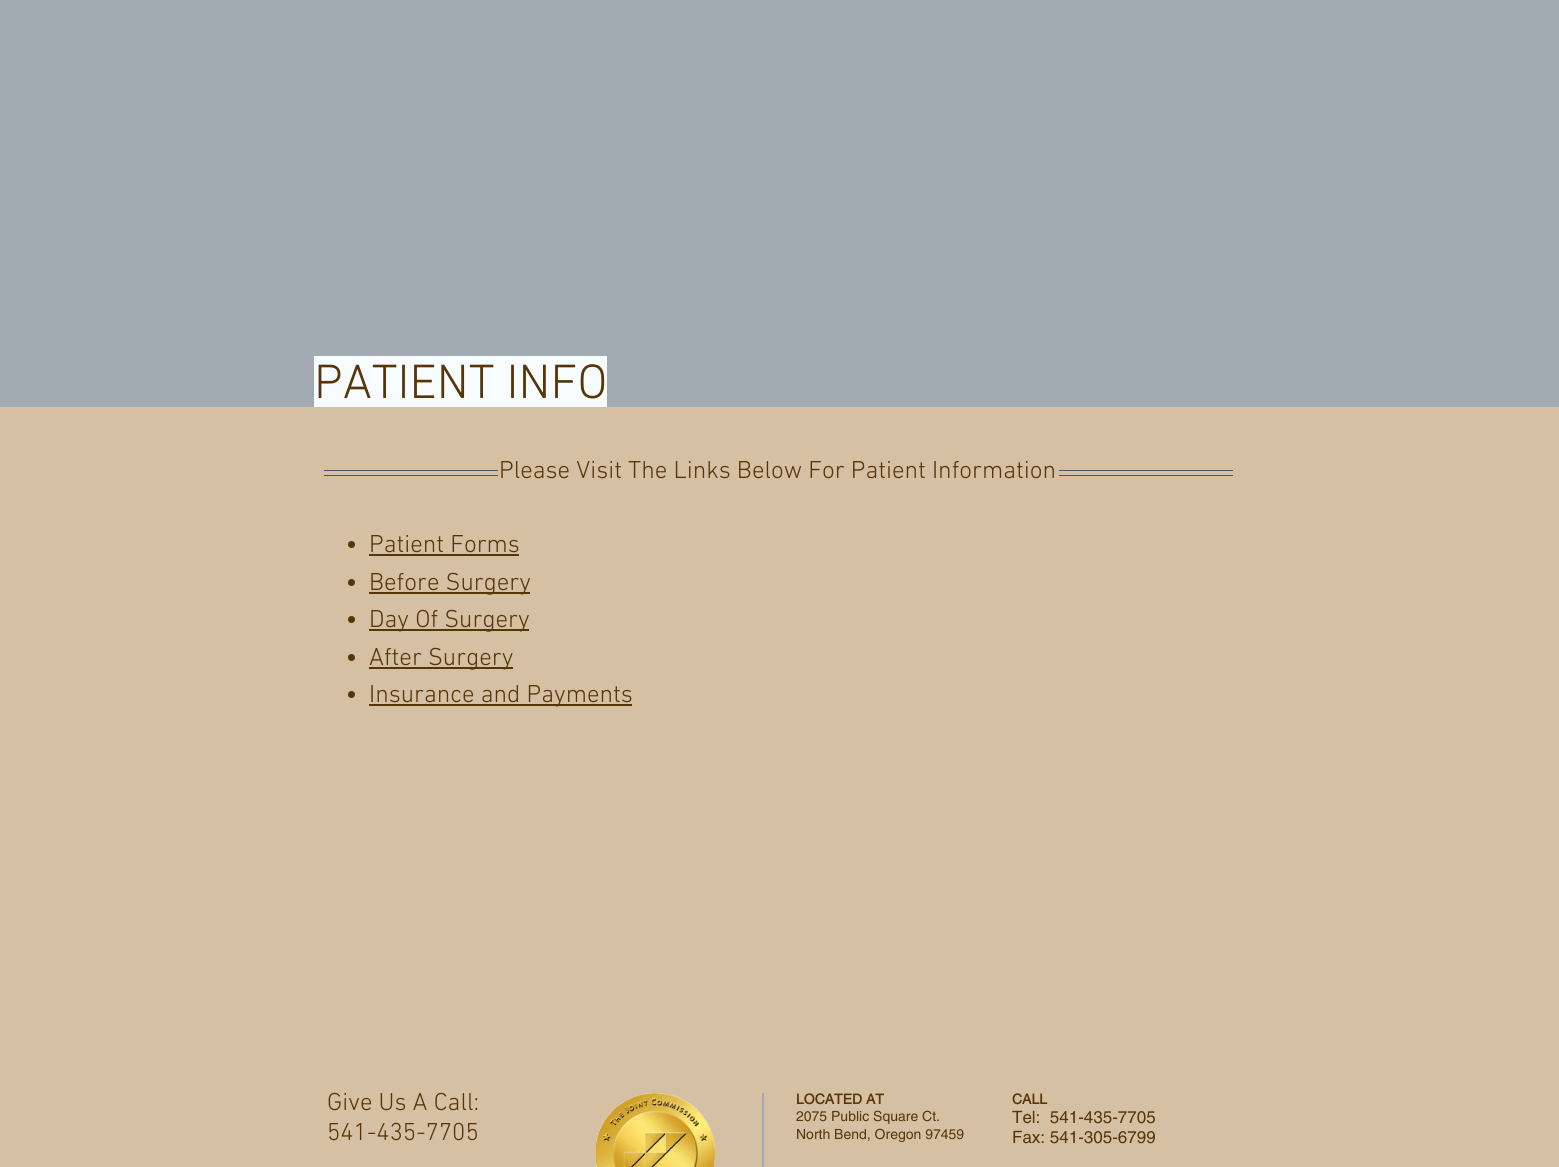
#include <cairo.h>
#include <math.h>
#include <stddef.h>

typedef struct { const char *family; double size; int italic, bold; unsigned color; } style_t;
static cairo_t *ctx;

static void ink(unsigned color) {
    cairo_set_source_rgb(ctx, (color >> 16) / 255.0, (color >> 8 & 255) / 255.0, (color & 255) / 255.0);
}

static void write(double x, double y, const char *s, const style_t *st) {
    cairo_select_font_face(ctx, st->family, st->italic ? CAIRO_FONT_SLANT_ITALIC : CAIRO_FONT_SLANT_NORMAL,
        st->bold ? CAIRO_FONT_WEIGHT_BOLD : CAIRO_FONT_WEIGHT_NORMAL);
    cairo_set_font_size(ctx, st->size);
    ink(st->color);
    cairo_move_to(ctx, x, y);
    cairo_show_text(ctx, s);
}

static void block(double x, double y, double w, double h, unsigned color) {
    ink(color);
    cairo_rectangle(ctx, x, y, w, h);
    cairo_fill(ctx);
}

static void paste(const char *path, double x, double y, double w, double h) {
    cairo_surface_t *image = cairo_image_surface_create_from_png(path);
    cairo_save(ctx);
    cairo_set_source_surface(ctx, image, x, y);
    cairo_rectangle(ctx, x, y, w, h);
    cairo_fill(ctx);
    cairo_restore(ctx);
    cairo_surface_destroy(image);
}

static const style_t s1 = {"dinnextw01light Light", 49, 0, 0, 0x583506};
static const style_t s2 = {"dinnextw01light Light", 25, 0, 0, 0x583506};
static const style_t s3 = {"helvetica", 14, 0, 1, 0x583506};
static const style_t s4 = {"helvetica", 14, 0, 0, 0x583506};
static const style_t s5 = {"helvetica", 17, 0, 0, 0x583506};

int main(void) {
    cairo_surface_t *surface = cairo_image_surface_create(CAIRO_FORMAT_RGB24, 1559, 1167);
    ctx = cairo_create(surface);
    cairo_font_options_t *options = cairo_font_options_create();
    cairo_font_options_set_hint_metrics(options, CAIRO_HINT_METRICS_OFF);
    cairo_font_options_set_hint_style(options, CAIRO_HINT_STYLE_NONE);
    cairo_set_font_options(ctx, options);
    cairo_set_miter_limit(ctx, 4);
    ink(0xd5c0a4);
    cairo_paint(ctx);
    block(0, 0, 1559, 407, 0xa2abb3);
    block(314, 356, 293, 51, 0xf6fcff);
    write(314, 398, "PATIENT INFO", &s1);
    block(324, 470, 174, 1, 0x4b5a68);
    block(324, 475, 174, 1, 0x4b5a68);
    write(499, 478, "Please Visit The Links Below For Patient Information", &s2);
    block(1059, 470, 174, 1, 0x4b5a68);
    block(1059, 475, 174, 1, 0x4b5a68);
    ink(0x583506);
    cairo_new_path(ctx);
    cairo_arc(ctx, 351.5, 544.5, 3.5, 0, 2 * M_PI);
    cairo_fill(ctx);
    write(369, 552, "Patient Forms", &s2);
    block(369, 554, 150, 2, 0x583506);
    cairo_new_path(ctx);
    cairo_arc(ctx, 351.5, 582.5, 3.5, 0, 2 * M_PI);
    cairo_fill(ctx);
    block(369, 592, 161, 2, 0x583506);
    write(369, 590, "Before Surgery", &s2);
    cairo_new_path(ctx);
    cairo_arc(ctx, 351.5, 619.5, 3.5, 0, 2 * M_PI);
    cairo_fill(ctx);
    block(369, 629, 160, 2, 0x583506);
    write(369, 627, "Day Of Surgery", &s2);
    cairo_new_path(ctx);
    cairo_arc(ctx, 351.5, 657.5, 3.5, 0, 2 * M_PI);
    cairo_fill(ctx);
    block(369, 667, 144, 2, 0x583506);
    write(369, 665, "After Surgery", &s2);
    cairo_new_path(ctx);
    cairo_arc(ctx, 351.5, 694.5, 3.5, 0, 2 * M_PI);
    cairo_fill(ctx);
    block(369, 704, 263, 2, 0x583506);
    write(369, 702, "Insurance and Payments", &s2);
    write(327, 1110, "Give Us A Call:", &s2);
    write(327, 1140, "541-435-7705", &s2);
    paste("pic1.png", 596, 1093, 119, 74);
    block(762, 1093, 2, 74, 0xa2abb3);
    write(796, 1104, "LOCATED AT", &s3);
    write(796, 1121, "2075 Public Square Ct.", &s4);
    write(796, 1139, "North Bend, Oregon 97459", &s4);
    write(1012, 1104, "CALL", &s3);
    write(1012, 1123, "Tel:  541-435-7705", &s5);
    write(1012, 1143, "Fax: 541-305-6799", &s5);
    cairo_surface_write_to_png(surface, "screenshot.png");
    cairo_font_options_destroy(options);
    cairo_destroy(ctx);
    cairo_surface_destroy(surface);
    return 0;
}
